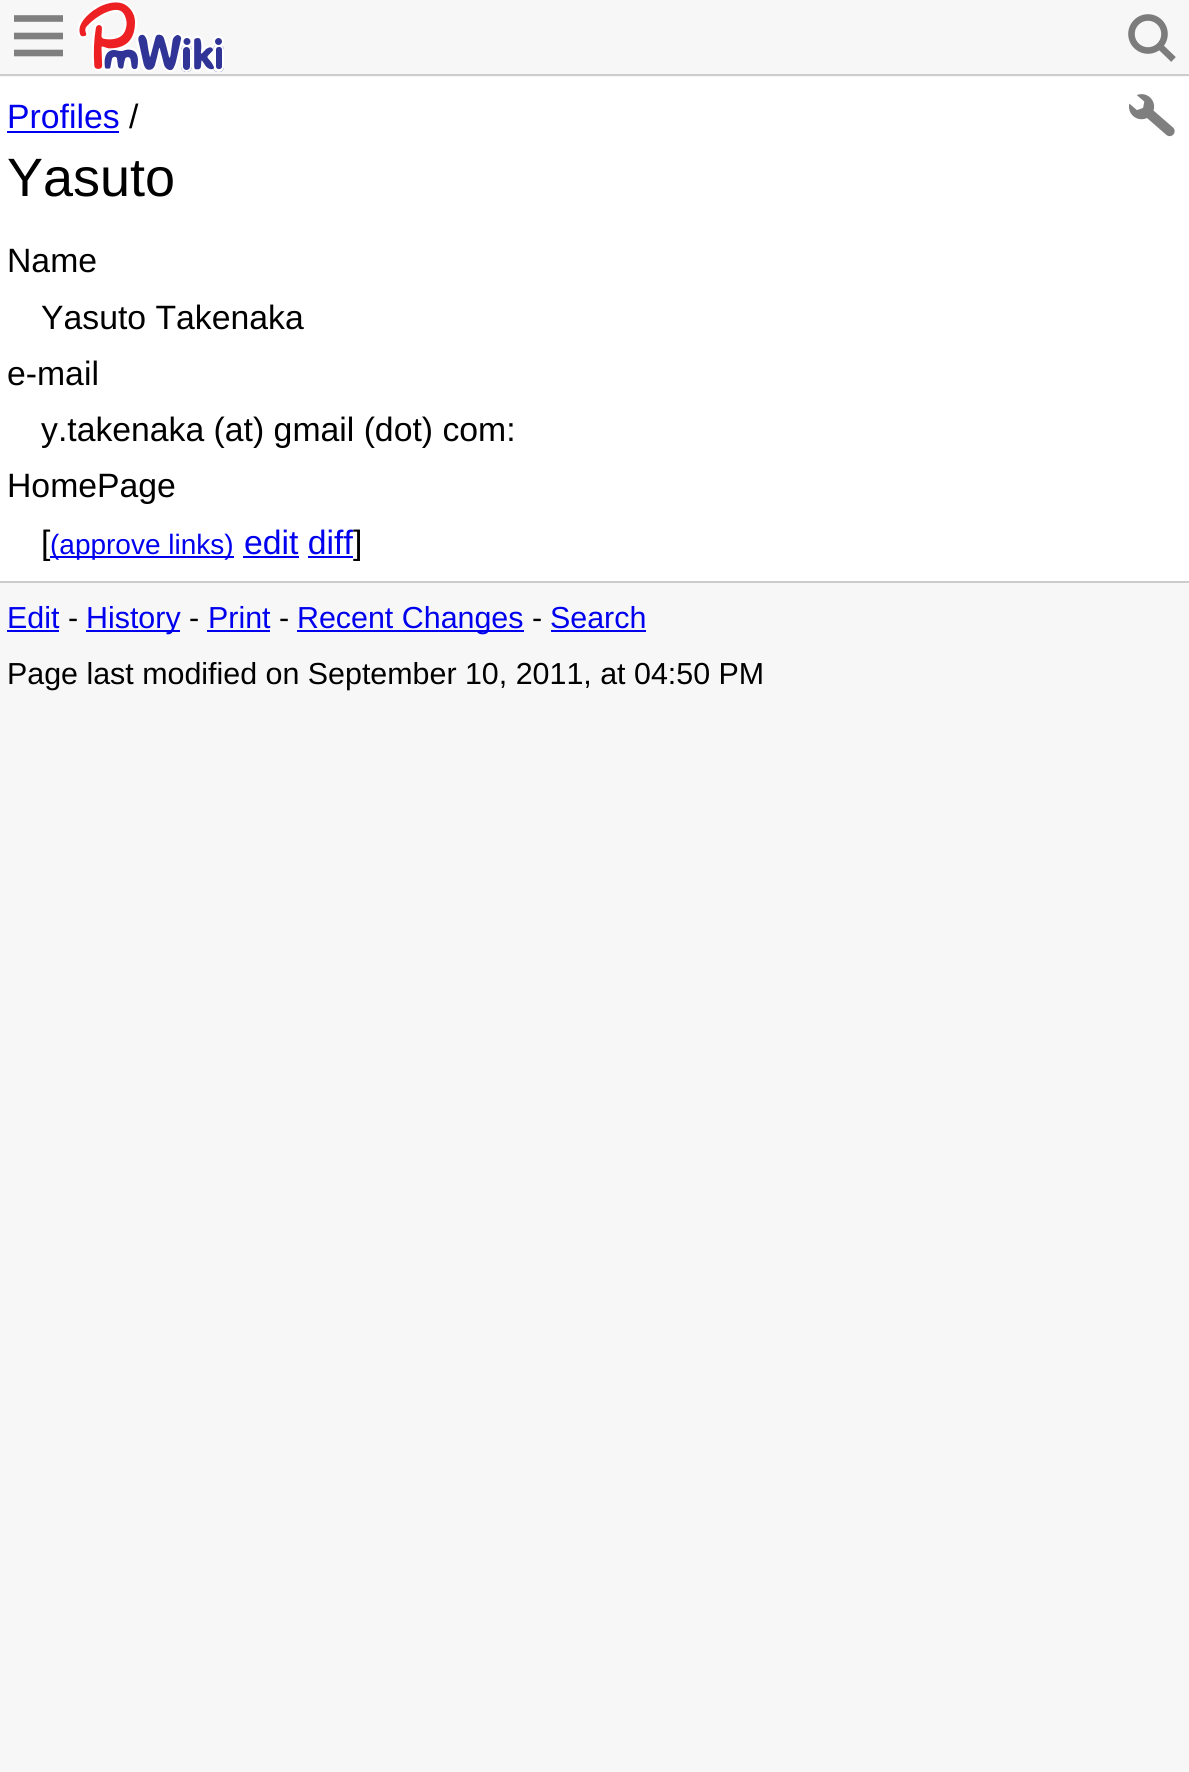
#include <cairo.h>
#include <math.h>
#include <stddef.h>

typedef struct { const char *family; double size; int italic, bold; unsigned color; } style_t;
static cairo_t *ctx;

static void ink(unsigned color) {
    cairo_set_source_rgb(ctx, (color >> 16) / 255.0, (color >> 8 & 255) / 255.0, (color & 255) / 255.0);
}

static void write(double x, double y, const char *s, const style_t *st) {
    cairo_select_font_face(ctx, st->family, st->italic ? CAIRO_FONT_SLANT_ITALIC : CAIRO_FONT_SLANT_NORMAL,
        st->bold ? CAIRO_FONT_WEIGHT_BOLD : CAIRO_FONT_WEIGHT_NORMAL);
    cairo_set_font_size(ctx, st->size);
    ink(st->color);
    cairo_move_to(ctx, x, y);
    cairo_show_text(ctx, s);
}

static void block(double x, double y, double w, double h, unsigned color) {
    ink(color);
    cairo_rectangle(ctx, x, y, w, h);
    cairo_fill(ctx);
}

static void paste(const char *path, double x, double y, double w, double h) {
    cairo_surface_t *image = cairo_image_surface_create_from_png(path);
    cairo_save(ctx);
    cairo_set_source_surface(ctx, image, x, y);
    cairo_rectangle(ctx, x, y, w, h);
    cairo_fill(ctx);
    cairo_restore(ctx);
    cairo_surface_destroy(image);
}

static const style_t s1 = {"Liberation Sans", 33.75, 0, 0, 0x0000ee};
static const style_t s2 = {"Liberation Sans", 33.75, 0, 0, 0x000000};
static const style_t s3 = {"Liberation Sans", 54, 0, 0, 0x000000};
static const style_t s4 = {"Liberation Sans", 28, 0, 0, 0x0000ee};
static const style_t s5 = {"Liberation Sans", 30.4, 0, 0, 0x0000ee};
static const style_t s6 = {"Liberation Sans", 30.4, 0, 0, 0x000000};

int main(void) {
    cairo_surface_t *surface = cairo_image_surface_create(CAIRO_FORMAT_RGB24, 1189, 1772);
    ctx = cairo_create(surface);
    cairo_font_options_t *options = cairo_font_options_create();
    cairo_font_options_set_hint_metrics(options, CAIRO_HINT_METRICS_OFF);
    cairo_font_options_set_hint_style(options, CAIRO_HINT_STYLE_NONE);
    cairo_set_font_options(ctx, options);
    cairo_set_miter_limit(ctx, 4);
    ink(0xf7f7f7);
    cairo_paint(ctx);
    block(0, 74, 1189, 2, 0xcccccc);
    paste("pic1.png", 77, 0, 147, 72);
    cairo_save(ctx);
    cairo_rectangle(ctx, 14, 14, 49, 49);
    cairo_clip(ctx);
    cairo_new_path(ctx);
    cairo_move_to(ctx, 13.5, 18.5);
    cairo_line_to(ctx, 63, 18.5);
    cairo_move_to(ctx, 13.5, 36);
    cairo_line_to(ctx, 63, 36);
    cairo_move_to(ctx, 13.5, 53);
    cairo_line_to(ctx, 63, 53);
    ink(0x7f7f7f);
    cairo_set_line_width(ctx, 6.6);
    cairo_stroke(ctx);
    cairo_restore(ctx);
    cairo_arc(ctx, 1148, 34, 16.5, 0, 2 * M_PI);
    ink(0x7c7c7c);
    cairo_set_line_width(ctx, 6.6);
    cairo_stroke(ctx);
    cairo_new_path(ctx);
    cairo_move_to(ctx, 1173.5, 59.5);
    cairo_line_to(ctx, 1160, 46.5);
    cairo_stroke(ctx);
    block(0, 77, 1189, 504, 0xffffff);
    write(7, 128, "Profiles", &s1);
    block(7, 131, 112, 2, 0x0000ee);
    write(129, 128, "/", &s2);
    write(7, 196, "Yasuto", &s3);
    paste("pic2.png", 1129, 94, 46, 43);
    write(7, 272, "Name", &s2);
    write(41, 329, "Yasuto Takenaka", &s2);
    write(7, 385, "e-mail", &s2);
    write(41, 441, "y.takenaka (at) gmail (dot) com:", &s2);
    write(7, 497, "HomePage", &s2);
    write(41, 554, "[", &s2);
    block(50, 556, 184, 2, 0x0000ee);
    write(50, 554, "(approve links)", &s4);
    write(244, 554, "edit diff", &s1);
    block(243, 556, 56, 2, 0x0000ee);
    block(308, 556, 45, 2, 0x0000ee);
    write(353, 554, "]", &s2);
    block(0, 581, 1189, 2, 0xcccccc);
    write(7, 628, "Edit", &s5);
    block(7, 630, 52, 2, 0x0000ee);
    write(68, 628, "-", &s6);
    block(86, 630, 94, 2, 0x0000ee);
    write(86, 628, "History", &s5);
    write(189, 628, "-", &s6);
    write(208, 628, "Print", &s5);
    block(207, 630, 63, 2, 0x0000ee);
    write(279, 628, "-", &s6);
    block(297, 630, 227, 2, 0x0000ee);
    write(297, 628, "Recent Changes", &s5);
    write(532, 628, "-", &s6);
    write(550, 628, "Search", &s5);
    block(551, 630, 95, 2, 0x0000ee);
    write(7, 684, "Page last modified on September 10, 2011, at 04:50 PM", &s6);
    cairo_surface_write_to_png(surface, "screenshot.png");
    cairo_font_options_destroy(options);
    cairo_destroy(ctx);
    cairo_surface_destroy(surface);
    return 0;
}
